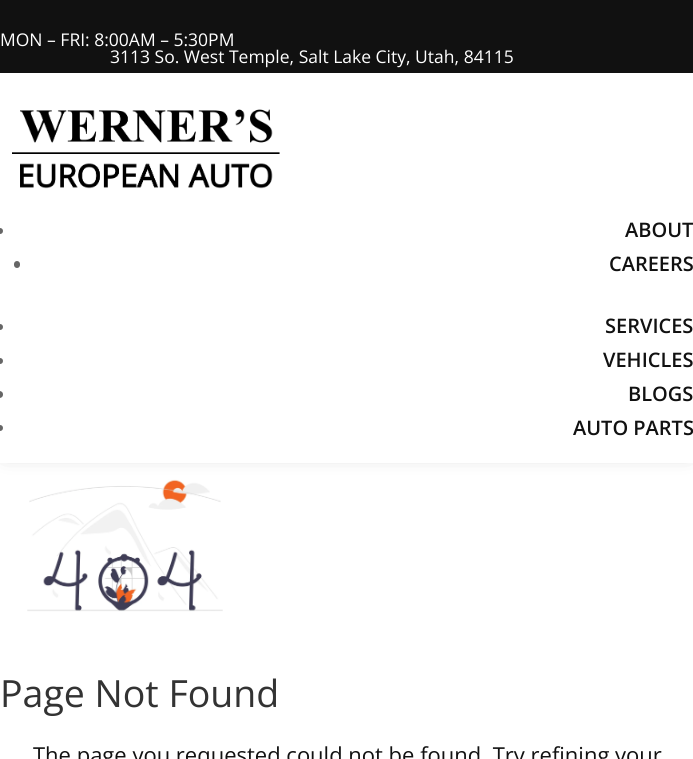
#include <cairo.h>
#include <math.h>
#include <stddef.h>

typedef struct { const char *family; double size; int italic, bold; unsigned color; } style_t;
static cairo_t *ctx;

static void ink(unsigned color) {
    cairo_set_source_rgb(ctx, (color >> 16) / 255.0, (color >> 8 & 255) / 255.0, (color & 255) / 255.0);
}

static void write(double x, double y, const char *s, const style_t *st) {
    cairo_select_font_face(ctx, st->family, st->italic ? CAIRO_FONT_SLANT_ITALIC : CAIRO_FONT_SLANT_NORMAL,
        st->bold ? CAIRO_FONT_WEIGHT_BOLD : CAIRO_FONT_WEIGHT_NORMAL);
    cairo_set_font_size(ctx, st->size);
    ink(st->color);
    cairo_move_to(ctx, x, y);
    cairo_show_text(ctx, s);
}

static void block(double x, double y, double w, double h, unsigned color) {
    ink(color);
    cairo_rectangle(ctx, x, y, w, h);
    cairo_fill(ctx);
}

static void round_path(double x, double y, double w, double h, double r) {
    cairo_new_sub_path(ctx);
    cairo_arc(ctx, x + w - r, y + h - r, r, 0, M_PI / 2);
    cairo_arc(ctx, x + r, y + h - r, r, M_PI / 2, M_PI);
    cairo_arc(ctx, x + r, y + r, r, M_PI, 1.5 * M_PI);
    cairo_arc(ctx, x + w - r, y + r, r, 1.5 * M_PI, 2 * M_PI);
    cairo_close_path(ctx);
}

static void blur_box(double x, double y, double w, double h, double r, double blur, double alpha) {
    cairo_push_group_with_content(ctx, CAIRO_CONTENT_ALPHA);
    cairo_set_operator(ctx, CAIRO_OPERATOR_SOURCE);
    for (int i = 15; i >= -15 && fmin(w, h) + blur * i / 3 > 0; i -= 2) {
        double e = blur * i / 6;
        cairo_set_source_rgba(ctx, 0, 0, 0, alpha * erfc((i - 1) / 8.5) / 2);
        round_path(x - e, y - e, w + 2 * e, h + 2 * e, fmax(0, fmin(r + e + blur * .6, fmin(w, h) / 2 + e)));
        cairo_fill(ctx);
    }
    cairo_pattern_t *soft = cairo_pop_group(ctx);
    cairo_mask(ctx, soft);
    cairo_pattern_destroy(soft);
}

static void paste(const char *path, double x, double y, double w, double h) {
    cairo_surface_t *image = cairo_image_surface_create_from_png(path);
    cairo_save(ctx);
    cairo_set_source_surface(ctx, image, x, y);
    cairo_rectangle(ctx, x, y, w, h);
    cairo_fill(ctx);
    cairo_restore(ctx);
    cairo_surface_destroy(image);
}

static const style_t s1 = {"Open Sans", 17.5, 0, 0, 0xffffff};
static const style_t s2 = {"Open Sans SemiBold", 20, 0, 0, 0x111111};
static const style_t s3 = {"Open Sans", 37.5, 0, 0, 0x333333};
static const style_t s4 = {"Open Sans", 22, 0, 0, 0x111111};

int main(void) {
    cairo_surface_t *surface = cairo_image_surface_create(CAIRO_FORMAT_RGB24, 693, 759);
    ctx = cairo_create(surface);
    cairo_font_options_t *options = cairo_font_options_create();
    cairo_font_options_set_hint_metrics(options, CAIRO_HINT_METRICS_OFF);
    cairo_font_options_set_hint_style(options, CAIRO_HINT_STYLE_NONE);
    cairo_set_font_options(ctx, options);
    cairo_set_miter_limit(ctx, 4);
    ink(0xffffff);
    cairo_paint(ctx);
    paste("pic2.png", 27, 479, 196, 133);
    cairo_save(ctx);
    cairo_set_fill_rule(ctx, CAIRO_FILL_RULE_EVEN_ODD);
    cairo_new_path(ctx);
    cairo_move_to(ctx, 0, 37);
    cairo_line_to(ctx, 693, 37);
    cairo_line_to(ctx, 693, 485);
    cairo_line_to(ctx, 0, 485);
    cairo_close_path(ctx);
    cairo_move_to(ctx, 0, 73);
    cairo_line_to(ctx, 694, 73);
    cairo_line_to(ctx, 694, 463);
    cairo_line_to(ctx, 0, 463);
    cairo_close_path(ctx);
    cairo_clip(ctx);
    ink(0x000000);
    blur_box(5, 71, 684, 380, 0, 11, 0.3);
    cairo_restore(ctx);
    block(0, 0, 693, 73, 0x111111);
    write(0, 46, "MON – FRI: 8:00AM – 5:30PM", &s1);
    write(110, 63, "3113 So. West Temple, Salt Lake City, Utah, 84115", &s1);
    paste("pic1.png", 12, 109, 268, 80);
    ink(0x666666);
    cairo_arc(ctx, 0, 231, 3, 0, 2 * M_PI);
    cairo_fill(ctx);
    write(625, 237, "ABOUT", &s2);
    ink(0x666666);
    round_path(14, 261, 6, 7, 3);
    cairo_fill(ctx);
    write(609, 271, "CAREERS", &s2);
    ink(0x666666);
    cairo_new_path(ctx);
    cairo_arc(ctx, 0, 327, 3, 0, 2 * M_PI);
    cairo_fill(ctx);
    write(605, 333, "SERVICES", &s2);
    ink(0x666666);
    cairo_new_path(ctx);
    cairo_arc(ctx, 0, 361, 3, 0, 2 * M_PI);
    cairo_fill(ctx);
    write(603, 367, "VEHICLES", &s2);
    ink(0x666666);
    cairo_new_path(ctx);
    cairo_arc(ctx, -0.5, 394.5, 3.5, 0, 2 * M_PI);
    cairo_fill(ctx);
    write(628, 401, "BLOGS", &s2);
    ink(0x666666);
    cairo_new_path(ctx);
    cairo_arc(ctx, 0, 428, 3, 0, 2 * M_PI);
    cairo_fill(ctx);
    write(573, 435, "AUTO PARTS", &s2);
    write(0, 707, "Page Not Found", &s3);
    write(33, 763, "The page you requested could not be found. Try refining your", &s4);
    cairo_surface_write_to_png(surface, "screenshot.png");
    cairo_font_options_destroy(options);
    cairo_destroy(ctx);
    cairo_surface_destroy(surface);
    return 0;
}
